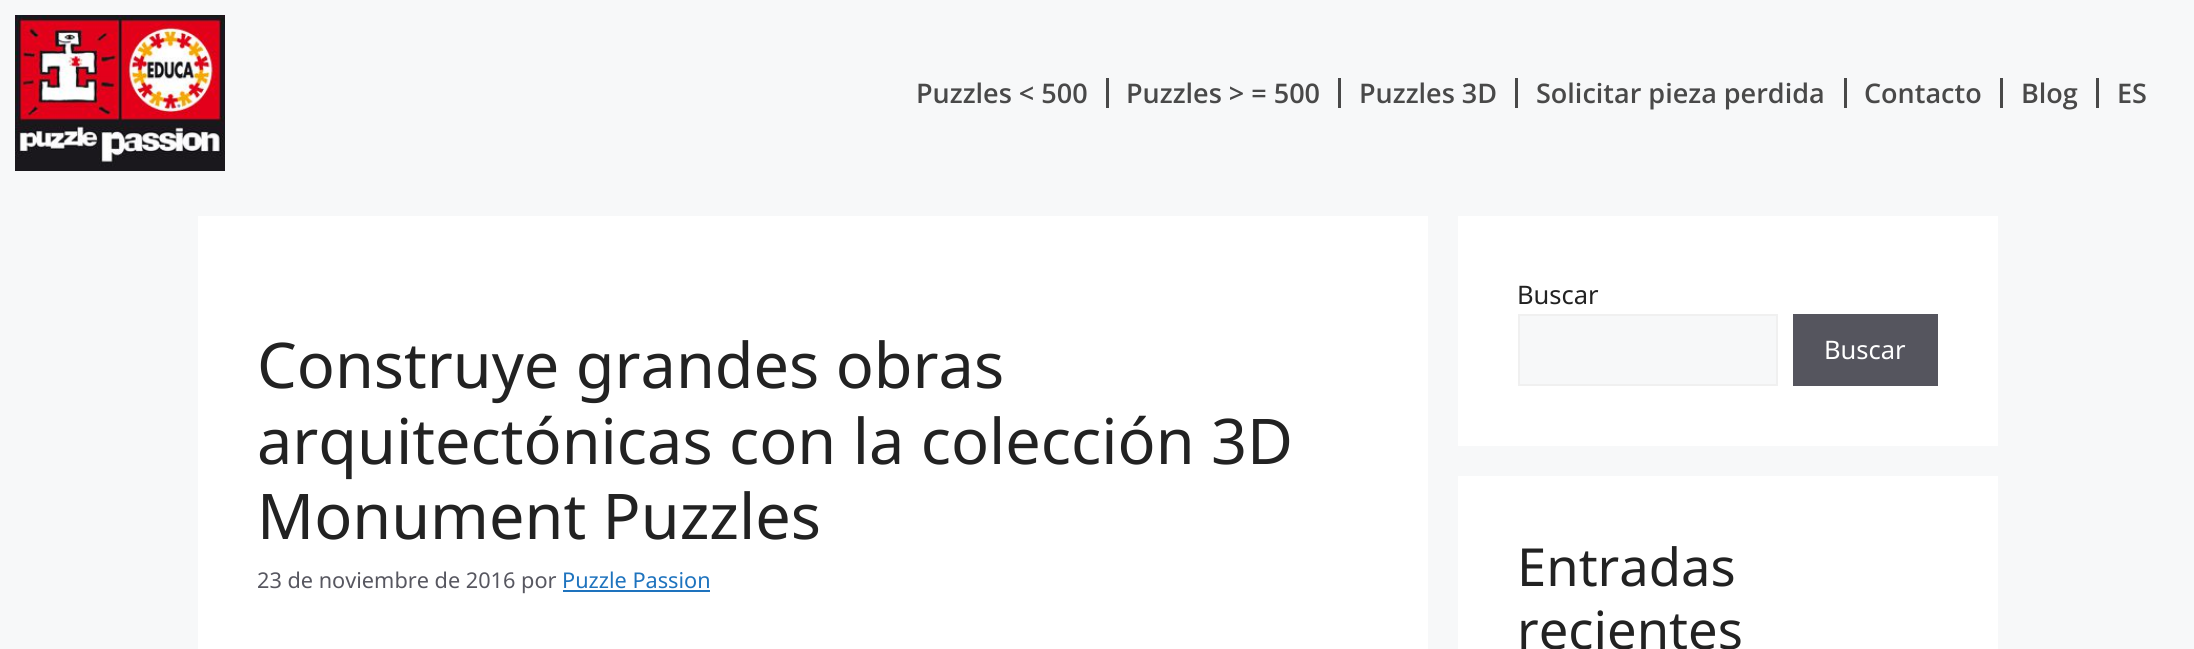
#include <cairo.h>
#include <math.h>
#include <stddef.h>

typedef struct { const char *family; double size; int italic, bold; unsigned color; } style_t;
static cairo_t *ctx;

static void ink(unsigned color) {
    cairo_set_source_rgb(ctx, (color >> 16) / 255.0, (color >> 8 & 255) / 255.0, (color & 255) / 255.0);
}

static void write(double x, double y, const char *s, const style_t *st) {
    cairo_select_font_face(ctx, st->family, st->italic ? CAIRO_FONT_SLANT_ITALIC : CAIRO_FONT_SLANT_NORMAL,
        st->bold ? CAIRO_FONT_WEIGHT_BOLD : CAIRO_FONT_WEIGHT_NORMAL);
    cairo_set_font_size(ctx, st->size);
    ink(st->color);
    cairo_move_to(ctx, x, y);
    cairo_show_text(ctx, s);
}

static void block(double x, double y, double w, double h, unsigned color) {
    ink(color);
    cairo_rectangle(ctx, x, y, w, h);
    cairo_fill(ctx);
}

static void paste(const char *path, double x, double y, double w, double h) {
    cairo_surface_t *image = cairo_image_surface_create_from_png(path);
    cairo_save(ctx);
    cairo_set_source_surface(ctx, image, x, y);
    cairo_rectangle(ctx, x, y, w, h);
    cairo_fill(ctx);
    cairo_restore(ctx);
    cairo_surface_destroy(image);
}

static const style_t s1 = {"Open Sans SemiBold", 27, 0, 0, 0x494949};
static const style_t s2 = {"Noto Sans", 63, 0, 0, 0x222222};
static const style_t s3 = {"Noto Sans", 21.7, 0, 0, 0x575760};
static const style_t s4 = {"Noto Sans", 21.7, 0, 0, 0x1e73be};
static const style_t s5 = {"Noto Sans", 25.5, 0, 0, 0x222222};
static const style_t s6 = {"Noto Sans", 25.5, 0, 0, 0xffffff};
static const style_t s7 = {"Noto Sans", 52.5, 0, 0, 0x222222};

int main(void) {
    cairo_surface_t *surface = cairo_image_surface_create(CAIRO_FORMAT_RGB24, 2194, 649);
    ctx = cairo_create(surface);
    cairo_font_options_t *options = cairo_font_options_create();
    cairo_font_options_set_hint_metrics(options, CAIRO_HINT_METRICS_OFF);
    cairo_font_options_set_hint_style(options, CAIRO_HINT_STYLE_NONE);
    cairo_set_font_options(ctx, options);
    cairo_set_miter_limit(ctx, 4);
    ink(0xf7f8f9);
    cairo_paint(ctx);
    paste("pic1.png", 15, 15, 210, 156);
    write(916, 103, "Puzzles < 500", &s1);
    block(1106, 78, 3, 30, 0x494949);
    write(1126, 103, "Puzzles > = 500", &s1);
    block(1338, 78, 3, 30, 0x494949);
    write(1359, 103, "Puzzles 3D", &s1);
    block(1515, 78, 3, 30, 0x494949);
    write(1536, 103, "Solicitar pieza perdida", &s1);
    block(1844, 78, 3, 30, 0x494949);
    write(1864, 103, "Contacto", &s1);
    block(2000, 78, 3, 30, 0x494949);
    write(2021, 103, "Blog", &s1);
    block(2096, 78, 3, 30, 0x494949);
    write(2117, 103, "ES", &s1);
    block(198, 216, 1230, 433, 0xffffff);
    write(257, 388, "Construye grandes obras", &s2);
    write(257, 464, "arquitectónicas con la colección 3D", &s2);
    write(257, 539, "Monument Puzzles", &s2);
    write(257, 588, "23 de noviembre de 2016 por", &s3);
    write(562, 588, "Puzzle Passion", &s4);
    block(563, 590, 147, 2, 0x1e73be);
    block(1458, 216, 540, 230, 0xffffff);
    write(1517, 304, "Buscar", &s5);
    ink(0xf7f8f9);
    cairo_rectangle(ctx, 1519, 315, 258, 70);
    cairo_fill_preserve(ctx);
    ink(0xf0f0f0);
    cairo_stroke(ctx);
    block(1793, 314, 145, 72, 0x55555e);
    write(1824, 359, "Buscar", &s6);
    block(1458, 476, 540, 173, 0xffffff);
    write(1517, 586, "Entradas", &s7);
    write(1517, 649, "recientes", &s7);
    cairo_surface_write_to_png(surface, "screenshot.png");
    cairo_font_options_destroy(options);
    cairo_destroy(ctx);
    cairo_surface_destroy(surface);
    return 0;
}
